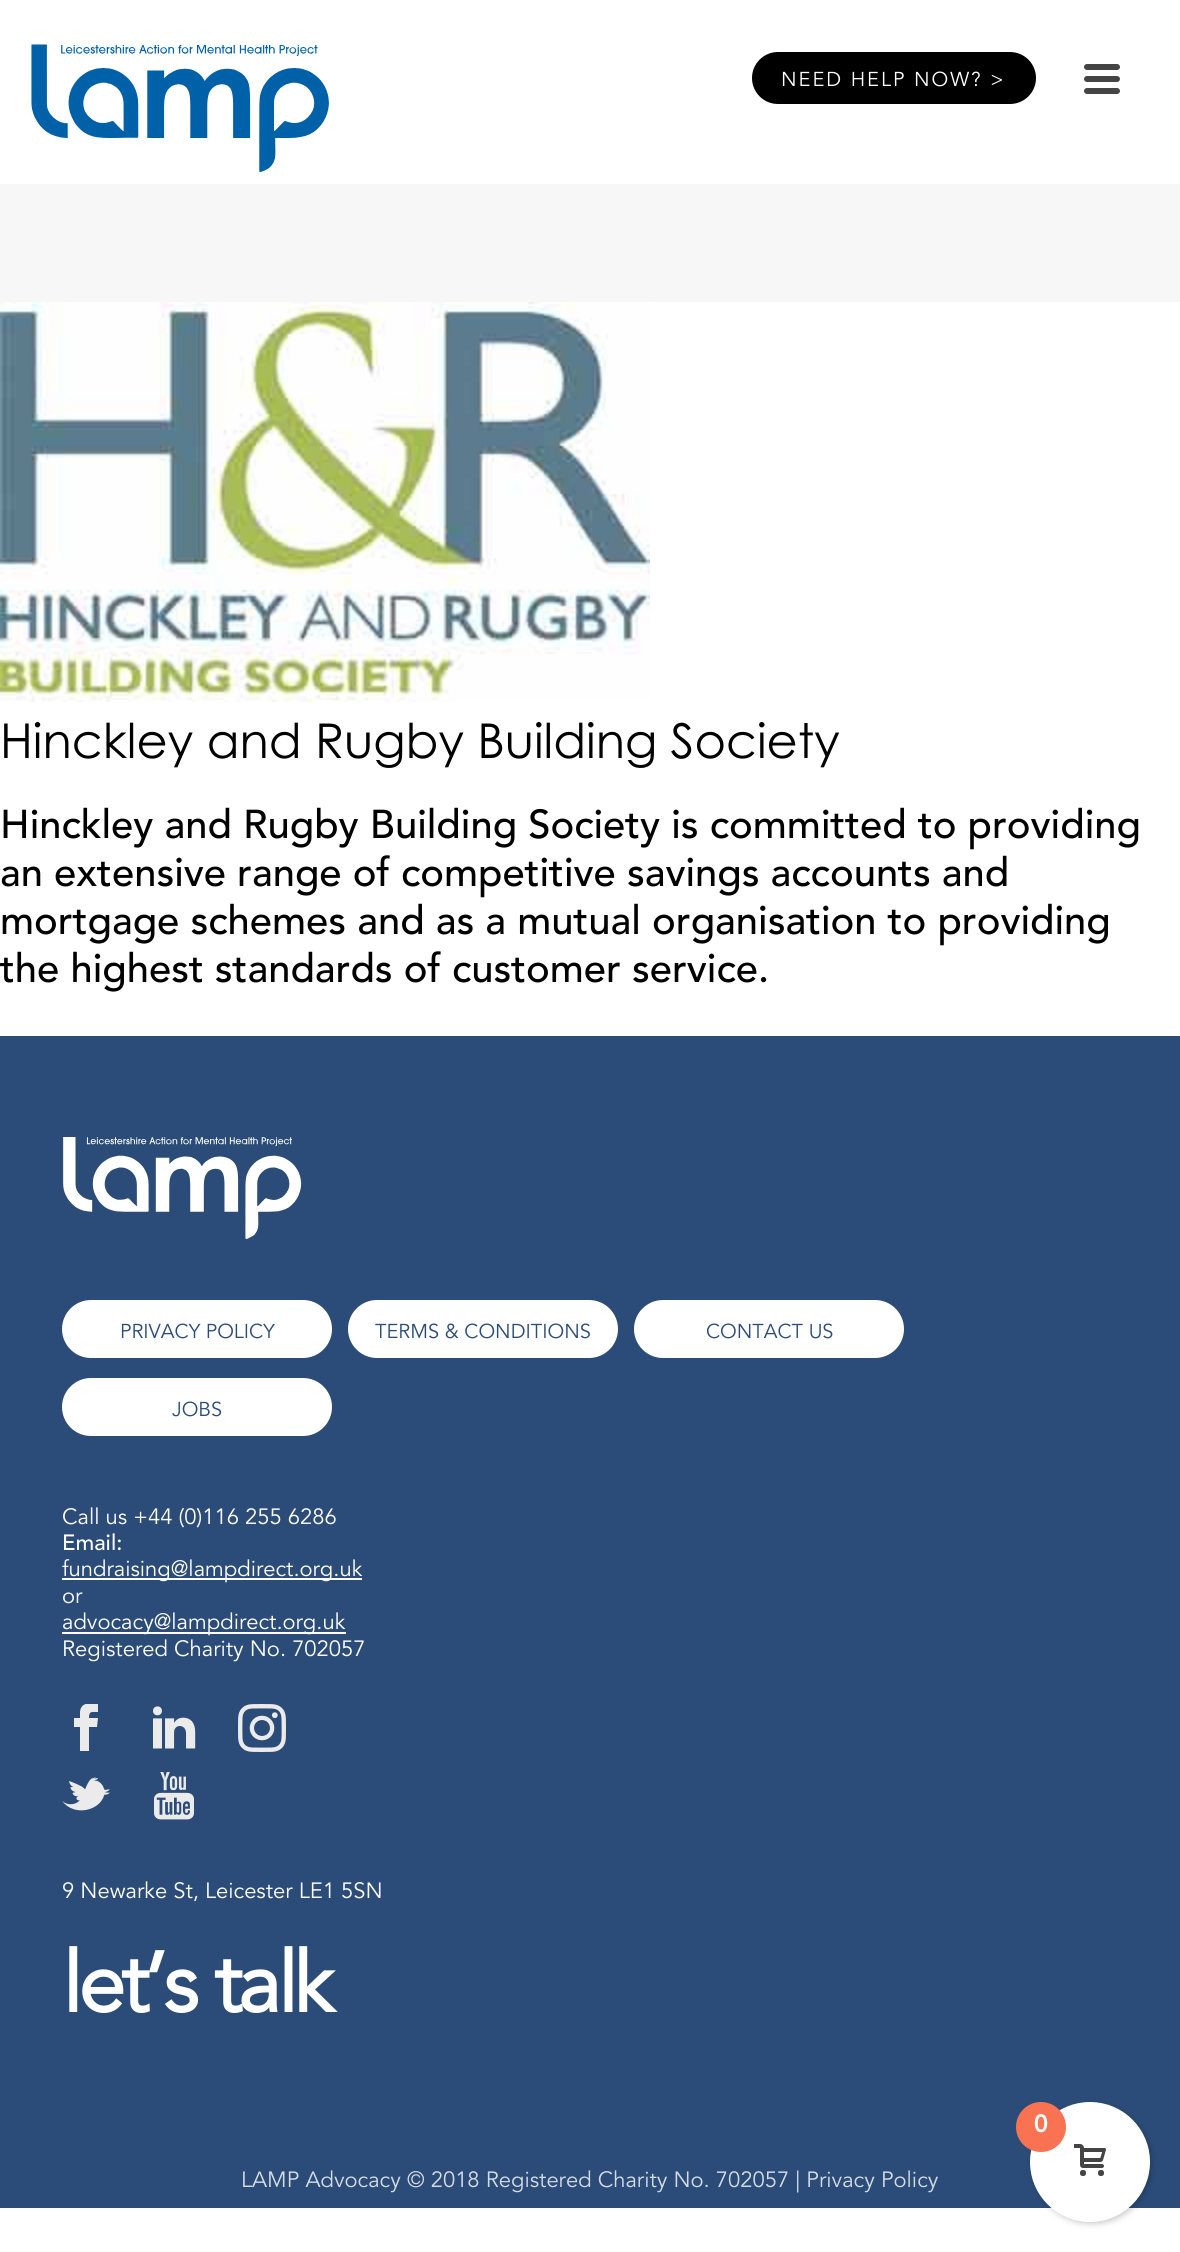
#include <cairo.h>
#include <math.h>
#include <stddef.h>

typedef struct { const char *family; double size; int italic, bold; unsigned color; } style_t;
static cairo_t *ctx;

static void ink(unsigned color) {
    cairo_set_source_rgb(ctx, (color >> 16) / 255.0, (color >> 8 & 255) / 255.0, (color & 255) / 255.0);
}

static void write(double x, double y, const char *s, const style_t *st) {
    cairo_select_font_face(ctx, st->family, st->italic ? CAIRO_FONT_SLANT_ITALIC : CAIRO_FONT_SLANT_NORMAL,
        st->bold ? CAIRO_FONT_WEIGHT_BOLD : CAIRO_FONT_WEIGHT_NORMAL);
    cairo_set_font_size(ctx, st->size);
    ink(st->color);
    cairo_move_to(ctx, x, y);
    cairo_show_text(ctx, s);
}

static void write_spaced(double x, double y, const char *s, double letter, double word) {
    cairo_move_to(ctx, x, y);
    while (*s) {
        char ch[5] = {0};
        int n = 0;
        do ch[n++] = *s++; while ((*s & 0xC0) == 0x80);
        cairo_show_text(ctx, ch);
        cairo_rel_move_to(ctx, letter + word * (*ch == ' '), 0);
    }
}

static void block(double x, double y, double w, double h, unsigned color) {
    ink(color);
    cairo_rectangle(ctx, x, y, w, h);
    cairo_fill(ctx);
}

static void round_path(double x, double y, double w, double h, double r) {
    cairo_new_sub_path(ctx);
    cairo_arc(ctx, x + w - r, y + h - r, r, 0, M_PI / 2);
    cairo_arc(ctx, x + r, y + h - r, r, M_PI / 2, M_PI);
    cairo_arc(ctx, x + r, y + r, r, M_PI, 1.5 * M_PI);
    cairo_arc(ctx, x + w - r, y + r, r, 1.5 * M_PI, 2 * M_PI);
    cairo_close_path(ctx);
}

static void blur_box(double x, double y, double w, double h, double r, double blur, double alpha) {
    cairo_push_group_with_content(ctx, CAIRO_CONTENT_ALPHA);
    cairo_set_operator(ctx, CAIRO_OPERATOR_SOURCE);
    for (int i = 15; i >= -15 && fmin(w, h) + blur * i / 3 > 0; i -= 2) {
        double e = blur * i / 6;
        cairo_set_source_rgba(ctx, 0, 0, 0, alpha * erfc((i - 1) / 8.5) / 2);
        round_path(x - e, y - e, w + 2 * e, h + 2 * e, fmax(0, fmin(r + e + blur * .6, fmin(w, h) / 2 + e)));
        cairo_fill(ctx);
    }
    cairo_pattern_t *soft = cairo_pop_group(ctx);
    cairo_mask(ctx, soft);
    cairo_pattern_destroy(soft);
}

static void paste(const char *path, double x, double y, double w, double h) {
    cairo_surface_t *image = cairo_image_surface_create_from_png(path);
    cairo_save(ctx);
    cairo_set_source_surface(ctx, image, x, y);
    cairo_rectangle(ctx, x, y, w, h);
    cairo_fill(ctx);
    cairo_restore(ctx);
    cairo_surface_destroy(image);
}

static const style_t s1 = {"Century Gothic", 48, 0, 0, 0x000000};
static const style_t s2 = {"Avenir Medium", 40, 0, 0, 0x000000};
static const style_t s3 = {"Avenir", 20, 0, 0, 0x2b4c78};
static const style_t s4 = {"Avenir", 22, 0, 0, 0xffffff};
static const style_t s5 = {"Avenir Medium", 22, 0, 0, 0xffffff};
static const style_t s6 = {"Avenir", 22, 0, 0, 0xd5dbe4};
static const style_t s7 = {"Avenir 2", 24, 0, 1, 0xffffff};

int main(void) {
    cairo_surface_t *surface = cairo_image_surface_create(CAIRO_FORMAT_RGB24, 1180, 2252);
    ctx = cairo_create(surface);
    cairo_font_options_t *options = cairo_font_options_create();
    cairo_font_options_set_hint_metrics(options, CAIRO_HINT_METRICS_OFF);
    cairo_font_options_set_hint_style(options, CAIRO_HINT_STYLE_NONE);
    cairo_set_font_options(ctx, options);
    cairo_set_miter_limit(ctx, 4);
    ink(0xffffff);
    cairo_paint(ctx);
    block(0, 184, 1180, 118, 0xf7f7f7);
    paste("pic1.png", 31, 44, 298, 128);
    ink(0x000000);
    round_path(752, 52, 284, 52, 26);
    cairo_fill(ctx);
    cairo_select_font_face(ctx, "Avenir", CAIRO_FONT_SLANT_NORMAL, CAIRO_FONT_WEIGHT_NORMAL);
    cairo_set_font_size(ctx, 20);
    ink(0xffffff);
    write_spaced(781, 86, "NEED HELP NOW? >", 2, 0);
    ink(0x444444);
    round_path(1084, 64, 36, 6, 3);
    cairo_fill(ctx);
    round_path(1084, 76, 36, 6, 3);
    cairo_fill(ctx);
    round_path(1084, 88, 36, 6, 3);
    cairo_fill(ctx);
    paste("pic2.png", 0, 302, 650, 400);
    write(0, 758, "Hinckley and Rugby Building Society", &s1);
    write(0, 838, "Hinckley and Rugby Building Society is committed to providing", &s2);
    write(0, 886, "an extensive range of competitive savings accounts and", &s2);
    write(0, 934, "mortgage schemes and as a mutual organisation to providing", &s2);
    write(0, 982, "the highest standards of customer service.", &s2);
    block(0, 1036, 1180, 1172, 0x2b4c78);
    paste("pic3.png", 63, 1137, 239, 102);
    ink(0xffffff);
    round_path(62, 1300, 270, 58, 29);
    cairo_fill(ctx);
    write(120, 1338, "PRIVACY POLICY", &s3);
    ink(0xffffff);
    round_path(348, 1300, 270, 58, 29);
    cairo_fill(ctx);
    write(375, 1338, "TERMS & CONDITIONS", &s3);
    ink(0xffffff);
    round_path(634, 1300, 270, 58, 29);
    cairo_fill(ctx);
    write(706, 1338, "CONTACT US", &s3);
    ink(0xffffff);
    round_path(62, 1378, 270, 58, 29);
    cairo_fill(ctx);
    write(172, 1416, "JOBS", &s3);
    write(62, 1524, "Call us +44 (0)116 255 6286", &s4);
    write(62, 1550, "Email:", &s5);
    block(62, 1578, 300, 2, 0xffffff);
    write(62, 1576, "fundraising@lampdirect.org.uk", &s4);
    write(62, 1603, "or", &s4);
    block(62, 1632, 284, 2, 0xffffff);
    write(62, 1629, "advocacy@lampdirect.org.uk", &s4);
    write(62, 1656, "Registered Charity No. 702057", &s4);
    cairo_save(ctx);
    cairo_rectangle(ctx, 62, 1704, 48, 48);
    cairo_clip(ctx);
    ink(0xebebeb);
    cairo_new_path(ctx);
    cairo_move_to(ctx, 80, 1713);
    cairo_line_to(ctx, 80, 1718);
    cairo_line_to(ctx, 74, 1718);
    cairo_line_to(ctx, 74, 1727);
    cairo_line_to(ctx, 80, 1727);
    cairo_line_to(ctx, 80, 1751);
    cairo_line_to(ctx, 89, 1751);
    cairo_line_to(ctx, 89, 1727);
    cairo_line_to(ctx, 97, 1727);
    cairo_line_to(ctx, 98, 1718);
    cairo_line_to(ctx, 89, 1718);
    cairo_curve_to(ctx, 89, 1711, 91, 1712, 98, 1712);
    cairo_line_to(ctx, 98, 1703);
    cairo_curve_to(ctx, 90, 1703, 80, 1702, 80, 1713);
    cairo_close_path(ctx);
    cairo_fill(ctx);
    cairo_restore(ctx);
    paste("pic4.png", 153, 1706, 43, 43);
    paste("pic5.png", 238, 1704, 48, 48);
    paste("pic6.png", 62, 1777, 48, 34);
    paste("pic7.png", 154, 1772, 40, 48);
    write(62, 1898, "9 Newarke St, Leicester LE1 5SN", &s4);
    cairo_select_font_face(ctx, "Avenir", CAIRO_FONT_SLANT_NORMAL, CAIRO_FONT_WEIGHT_BOLD);
    cairo_set_font_size(ctx, 84);
    write_spaced(62, 2012, "let’s talk", -4, 0);
    write(241, 2187, "LAMP Advocacy © 2018 Registered Charity No. 702057 | Privacy Policy", &s6);
    ink(0x000000);
    blur_box(1032, 2104, 120, 120, 60, 3, 0.2);
    ink(0xffffff);
    cairo_arc(ctx, 1090, 2162, 60, 0, 2 * M_PI);
    cairo_fill(ctx);
    ink(0xf97352);
    cairo_arc(ctx, 1041, 2127, 25, 0, 2 * M_PI);
    cairo_fill(ctx);
    write(1034, 2132, "0", &s7);
    paste("pic8.png", 1074, 2144, 32, 32);
    cairo_surface_write_to_png(surface, "screenshot.png");
    cairo_font_options_destroy(options);
    cairo_destroy(ctx);
    cairo_surface_destroy(surface);
    return 0;
}
